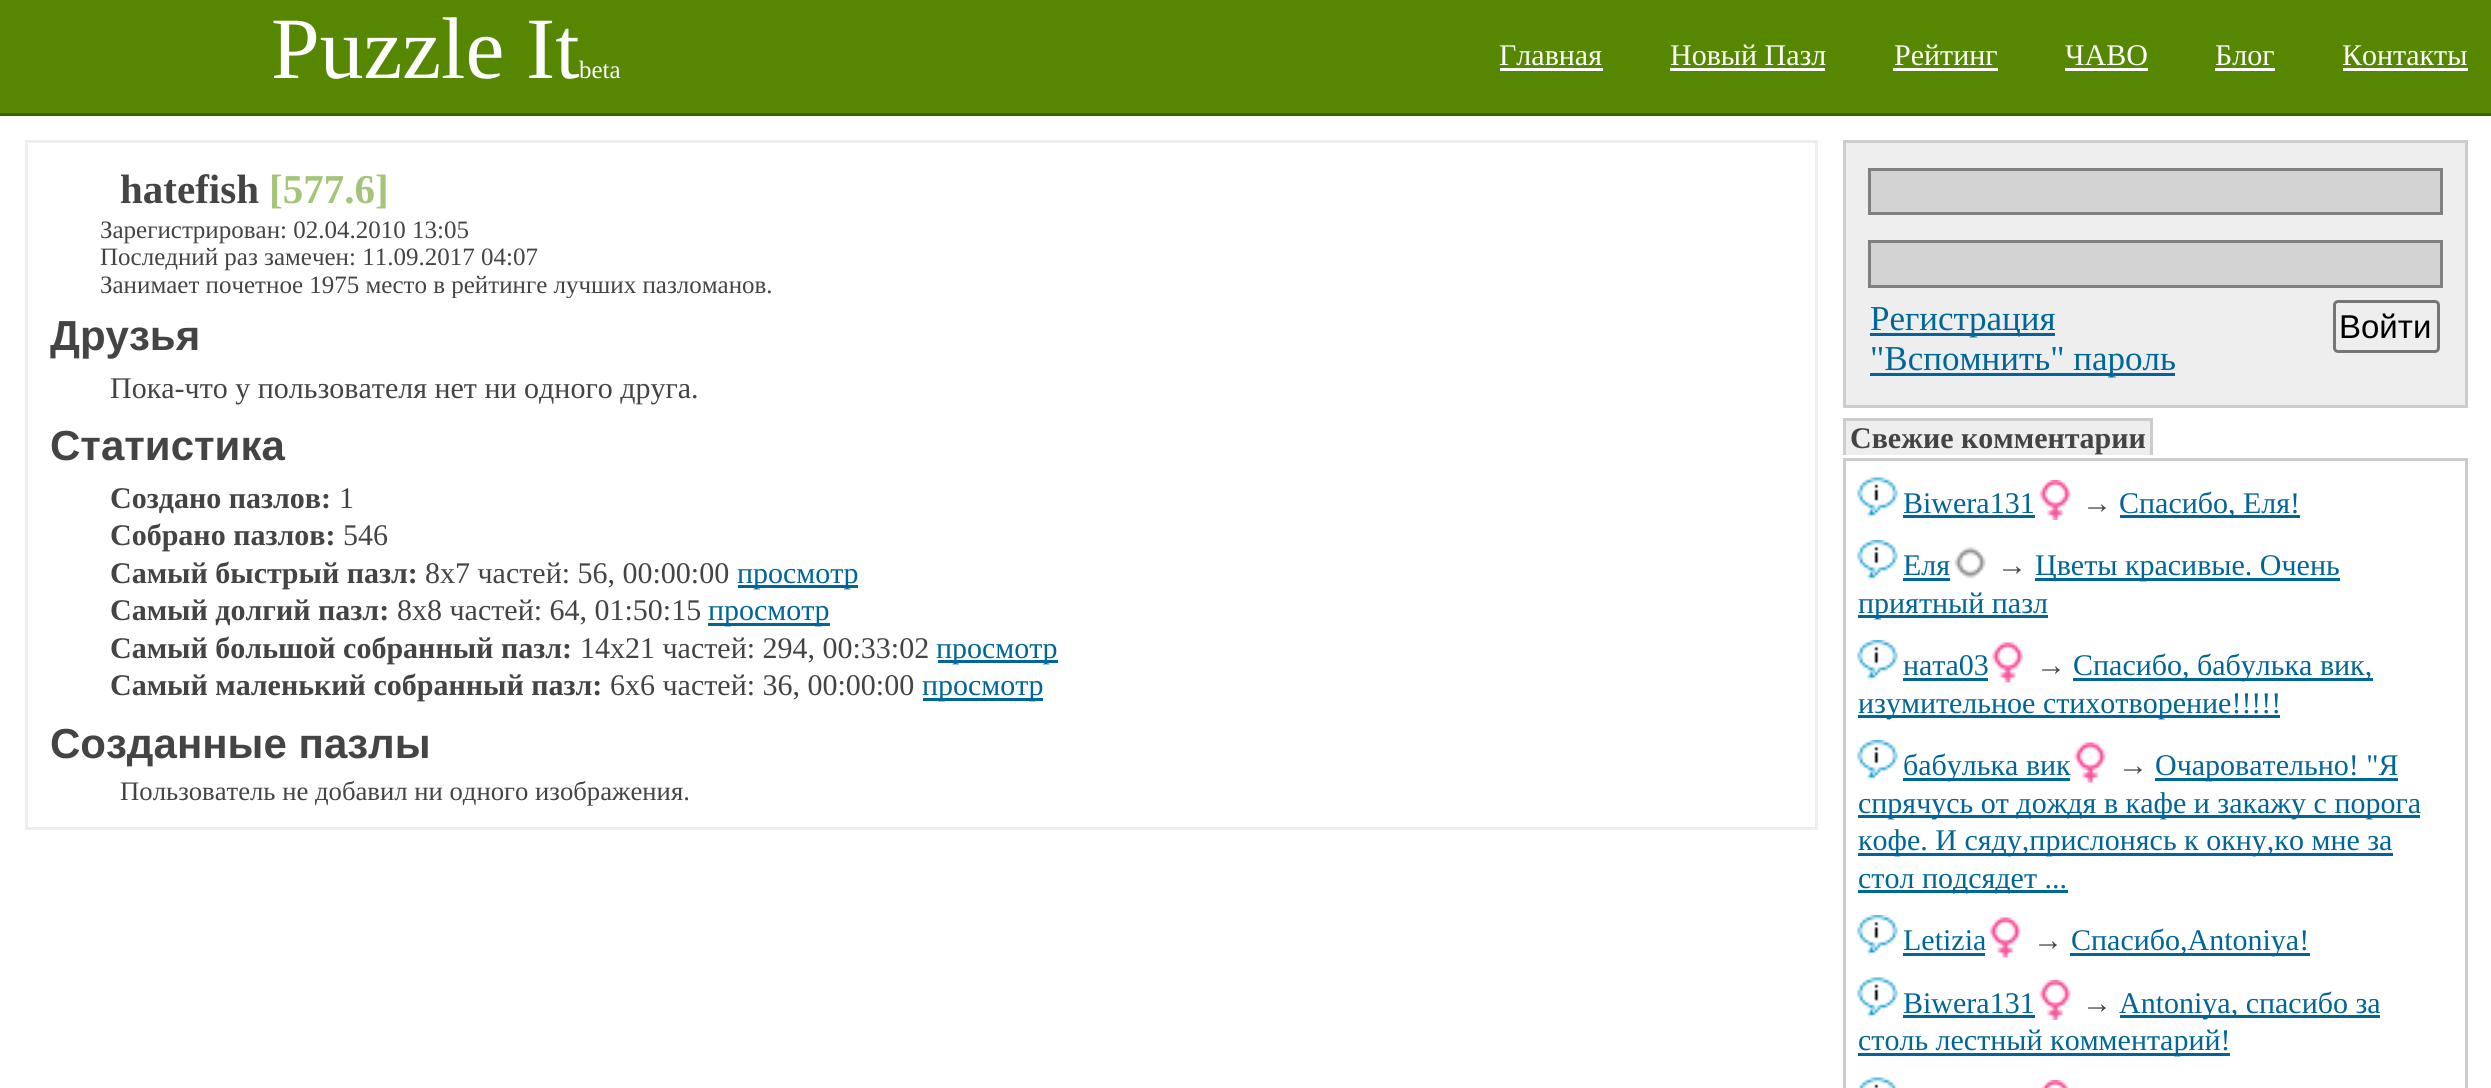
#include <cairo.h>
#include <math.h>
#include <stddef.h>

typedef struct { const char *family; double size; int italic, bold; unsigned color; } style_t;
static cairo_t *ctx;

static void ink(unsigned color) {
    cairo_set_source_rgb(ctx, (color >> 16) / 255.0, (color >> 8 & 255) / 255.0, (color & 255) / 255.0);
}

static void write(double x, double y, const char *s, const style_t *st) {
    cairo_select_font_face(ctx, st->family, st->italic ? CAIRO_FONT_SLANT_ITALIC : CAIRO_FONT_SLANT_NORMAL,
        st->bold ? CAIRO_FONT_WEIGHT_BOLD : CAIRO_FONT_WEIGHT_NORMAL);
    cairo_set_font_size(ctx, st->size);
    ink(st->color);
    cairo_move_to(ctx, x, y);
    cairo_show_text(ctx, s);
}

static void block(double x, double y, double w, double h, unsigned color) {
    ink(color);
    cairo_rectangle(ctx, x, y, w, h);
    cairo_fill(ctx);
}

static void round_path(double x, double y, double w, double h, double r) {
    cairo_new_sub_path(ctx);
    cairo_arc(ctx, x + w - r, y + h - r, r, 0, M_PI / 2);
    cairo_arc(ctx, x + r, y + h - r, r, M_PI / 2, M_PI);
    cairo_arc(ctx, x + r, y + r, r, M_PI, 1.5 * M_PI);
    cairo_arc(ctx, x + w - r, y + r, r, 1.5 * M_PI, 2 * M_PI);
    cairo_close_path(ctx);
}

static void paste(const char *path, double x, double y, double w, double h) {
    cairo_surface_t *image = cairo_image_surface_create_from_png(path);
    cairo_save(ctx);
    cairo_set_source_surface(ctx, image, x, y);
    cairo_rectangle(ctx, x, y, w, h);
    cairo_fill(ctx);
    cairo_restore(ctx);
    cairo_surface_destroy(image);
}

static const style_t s1 = {"Liberation Serif", 87.5, 0, 0, 0xffffff};
static const style_t s2 = {"Liberation Serif", 25, 0, 0, 0xffffff};
static const style_t s3 = {"Liberation Serif", 30, 0, 0, 0xffffff};
static const style_t s4 = {"Liberation Serif", 41, 0, 1, 0x444444};
static const style_t s5 = {"Liberation Serif", 41, 0, 1, 0xa4c479};
static const style_t s6 = {"Liberation Serif", 25, 0, 0, 0x444444};
static const style_t s7 = {"Liberation Sans", 42, 0, 1, 0x444444};
static const style_t s8 = {"Liberation Serif", 30, 0, 0, 0x444444};
static const style_t s9 = {"Liberation Serif", 30, 0, 1, 0x444444};
static const style_t s10 = {"Liberation Serif", 30, 0, 0, 0x006699};
static const style_t s11 = {"Liberation Serif", 26.7, 0, 0, 0x444444};
static const style_t s12 = {"Liberation Serif", 35, 0, 0, 0x006699};
static const style_t s13 = {"Liberation Sans", 33, 0, 0, 0x000000};

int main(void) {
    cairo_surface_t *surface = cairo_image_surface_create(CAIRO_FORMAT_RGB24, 2491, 1088);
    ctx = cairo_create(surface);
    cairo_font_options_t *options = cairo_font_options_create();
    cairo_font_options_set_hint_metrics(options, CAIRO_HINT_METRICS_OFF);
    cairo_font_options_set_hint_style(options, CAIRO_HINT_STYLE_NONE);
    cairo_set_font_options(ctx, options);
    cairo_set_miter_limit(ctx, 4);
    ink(0xffffff);
    cairo_paint(ctx);
    block(0, 0, 2491, 113, 0x558800);
    block(0, 113, 2491, 3, 0x336600);
    write(271, 78, "Puzzle It", &s1);
    write(579, 78, "beta", &s2);
    write(1499, 65, "Главная", &s3);
    block(1500, 68, 103, 3, 0xffffff);
    write(1670, 65, "Новый Пазл", &s3);
    block(1670, 68, 155, 3, 0xffffff);
    write(1894, 65, "Рейтинг", &s3);
    block(1893, 68, 105, 3, 0xffffff);
    write(2065, 65, "ЧАВО", &s3);
    block(2065, 68, 83, 3, 0xffffff);
    write(2215, 65, "Блог", &s3);
    block(2215, 68, 60, 3, 0xffffff);
    write(2342, 65, "Контакты", &s3);
    block(2343, 68, 125, 3, 0xffffff);
    cairo_rectangle(ctx, 26.5, 141.5, 1790, 687);
    ink(0xeeeeee);
    cairo_set_line_width(ctx, 3);
    cairo_stroke(ctx);
    write(120, 203, "hatefish", &s4);
    write(269, 203, "[577.6]", &s5);
    write(100, 238, "Зарегистрирован: 02.04.2010 13:05", &s6);
    write(100, 265, "Последний раз замечен: 11.09.2017 04:07", &s6);
    cairo_save(ctx);
    cairo_rectangle(ctx, 50, 165, 1743, 133);
    cairo_clip(ctx);
    write(100, 293, "Занимает почетное 1975 место в рейтинге лучших пазломанов.", &s6);
    cairo_restore(ctx);
    write(50, 350, "Друзья", &s7);
    write(110, 398, "Пока-что у пользователя нет ни одного друга.", &s8);
    write(50, 460, "Статистика", &s7);
    write(110, 508, "Создано пазлов:", &s9);
    write(339, 508, "1", &s8);
    write(110, 545, "Собрано пазлов:", &s9);
    write(343, 545, "546", &s8);
    write(110, 583, "Самый быстрый пазл:", &s9);
    write(425, 583, "8x7 частей: 56, 00:00:00", &s8);
    block(738, 585, 120, 3, 0x006699);
    write(737, 583, "просмотр", &s10);
    write(110, 620, "Самый долгий пазл:", &s9);
    write(397, 620, "8x8 частей: 64, 01:50:15", &s8);
    block(708, 623, 122, 3, 0x006699);
    write(708, 620, "просмотр", &s10);
    write(110, 658, "Самый большой собранный пазл:", &s9);
    write(580, 658, "14x21 частей: 294, 00:33:02", &s8);
    block(938, 660, 120, 3, 0x006699);
    write(936, 658, "просмотр", &s10);
    write(110, 695, "Самый маленький собранный пазл:", &s9);
    write(610, 695, "6x6 частей: 36, 00:00:00", &s8);
    block(923, 698, 120, 3, 0x006699);
    write(922, 695, "просмотр", &s10);
    write(50, 758, "Созданные пазлы", &s7);
    write(120, 800, "Пользователь не добавил ни одного изображения.", &s11);
    ink(0xeeeeee);
    cairo_rectangle(ctx, 1844.5, 141.5, 622, 265);
    cairo_fill_preserve(ctx);
    ink(0xcccccc);
    cairo_stroke(ctx);
    ink(0xd3d3d3);
    cairo_rectangle(ctx, 1869.5, 169.5, 572, 44);
    cairo_fill_preserve(ctx);
    ink(0x808080);
    cairo_stroke(ctx);
    ink(0xd3d3d3);
    cairo_rectangle(ctx, 1869.5, 241.5, 572, 45);
    cairo_fill_preserve(ctx);
    ink(0x808080);
    cairo_stroke(ctx);
    block(1870, 333, 185, 3, 0x006699);
    write(1870, 330, "Регистрация", &s12);
    block(1870, 373, 305, 3, 0x006699);
    write(1870, 370, "\"Вспомнить\" пароль", &s12);
    round_path(2334.5, 301.5, 104, 50, 3.5);
    ink(0x767676);
    cairo_stroke(ctx);
    write(2339, 338, "Войти", &s13);
    block(1846, 421, 304, 34, 0xeeeeee);
    write(1850, 448, "Свежие комментарии", &s9);
    block(1843, 418, 310, 3, 0xcccccc);
    block(2150, 418, 3, 37, 0xcccccc);
    block(1843, 418, 3, 37, 0xcccccc);
    cairo_rectangle(ctx, 1844.5, 459.5, 622, 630);
    cairo_stroke(ctx);
    paste("pic1.png", 1857, 477, 41, 41);
    write(1903, 513, "Biwera131", &s10);
    block(1903, 515, 132, 3, 0x006699);
    paste("pic2.png", 2039, 480, 32, 40);
    write(2082, 513, "→", &s8);
    block(2120, 515, 180, 3, 0x006699);
    write(2119, 513, "Спасибо, Еля!", &s10);
    paste("pic3.png", 1857, 540, 41, 40);
    write(1903, 575, "Еля", &s10);
    block(1903, 578, 47, 3, 0x006699);
    paste("pic4.png", 1954, 547, 32, 32);
    write(1997, 575, "→", &s8);
    block(2035, 578, 305, 3, 0x006699);
    write(2035, 575, "Цветы красивые. Очень", &s10);
    block(1858, 615, 190, 3, 0x006699);
    write(1858, 613, "приятный пазл", &s10);
    paste("pic3.png", 1857, 640, 41, 40);
    write(1903, 675, "ната03", &s10);
    block(1903, 678, 85, 3, 0x006699);
    paste("pic5.png", 1991, 642, 33, 41);
    write(2036, 675, "→", &s8);
    block(2073, 678, 300, 3, 0x006699);
    write(2073, 675, "Спасибо, бабулька вик,", &s10);
    block(1858, 715, 422, 3, 0x006699);
    write(1858, 713, "изумительное стихотворение!!!!!", &s10);
    paste("pic3.png", 1857, 740, 41, 40);
    block(1903, 778, 167, 3, 0x006699);
    write(1903, 775, "бабулька вик", &s10);
    paste("pic6.png", 2074, 742, 32, 41);
    write(2118, 775, "→", &s8);
    block(2155, 778, 243, 3, 0x006699);
    write(2155, 775, "Очаровательно! \"Я", &s10);
    block(1858, 815, 562, 3, 0x006699);
    write(1858, 813, "спрячусь от дождя в кафе и закажу с порога", &s10);
    block(1858, 853, 535, 3, 0x006699);
    write(1858, 850, "кофе. И сяду,прислонясь к окну,ко мне за", &s10);
    block(1858, 890, 210, 3, 0x006699);
    write(1858, 888, "стол подсядет ...", &s10);
    paste("pic3.png", 1857, 915, 41, 40);
    write(1903, 950, "Letizia", &s10);
    block(1903, 953, 82, 3, 0x006699);
    paste("pic7.png", 1989, 917, 32, 41);
    write(2033, 950, "→", &s8);
    block(2070, 953, 240, 3, 0x006699);
    write(2071, 950, "Спасибо,Antoniya!", &s10);
    paste("pic1.png", 1857, 977, 41, 41);
    write(1903, 1013, "Biwera131", &s10);
    block(1903, 1015, 132, 3, 0x006699);
    paste("pic2.png", 2039, 980, 32, 40);
    write(2082, 1013, "→", &s8);
    block(2120, 1015, 260, 3, 0x006699);
    write(2119, 1013, "Antoniya, спасибо за", &s10);
    block(1858, 1053, 372, 3, 0x006699);
    write(1858, 1050, "столь лестный комментарий!", &s10);
    paste("pic8.png", 1858, 1077, 38, 11);
    paste("pic9.png", 2041, 1080, 29, 8);
    cairo_surface_write_to_png(surface, "screenshot.png");
    cairo_font_options_destroy(options);
    cairo_destroy(ctx);
    cairo_surface_destroy(surface);
    return 0;
}
